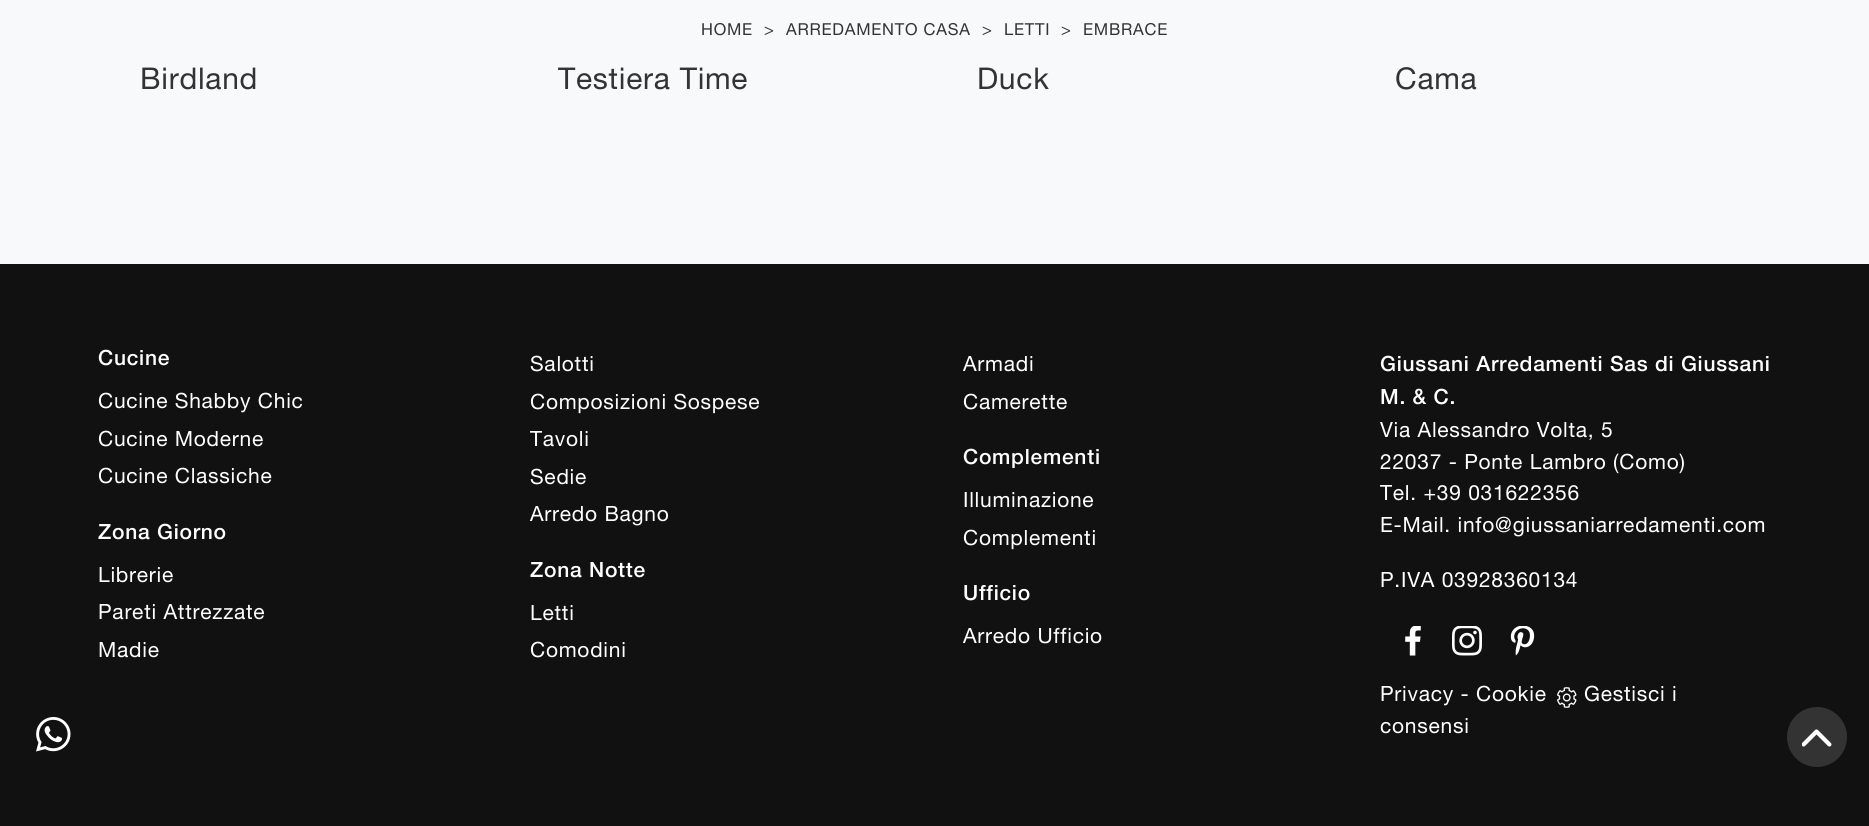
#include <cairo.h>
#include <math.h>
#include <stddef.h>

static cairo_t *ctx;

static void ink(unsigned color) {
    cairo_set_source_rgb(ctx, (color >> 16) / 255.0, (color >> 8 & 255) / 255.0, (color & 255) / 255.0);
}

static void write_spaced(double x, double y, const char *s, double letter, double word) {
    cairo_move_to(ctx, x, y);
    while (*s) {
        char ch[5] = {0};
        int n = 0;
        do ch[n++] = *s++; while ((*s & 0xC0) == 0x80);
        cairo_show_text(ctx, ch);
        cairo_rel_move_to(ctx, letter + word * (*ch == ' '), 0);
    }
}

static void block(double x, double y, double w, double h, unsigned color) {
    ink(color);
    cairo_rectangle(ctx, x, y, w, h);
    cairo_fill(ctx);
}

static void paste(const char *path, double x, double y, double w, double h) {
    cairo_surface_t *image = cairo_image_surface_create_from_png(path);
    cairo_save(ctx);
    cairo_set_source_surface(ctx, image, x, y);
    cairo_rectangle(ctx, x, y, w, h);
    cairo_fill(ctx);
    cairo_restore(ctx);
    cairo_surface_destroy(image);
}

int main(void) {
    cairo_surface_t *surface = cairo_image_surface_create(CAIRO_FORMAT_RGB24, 1869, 826);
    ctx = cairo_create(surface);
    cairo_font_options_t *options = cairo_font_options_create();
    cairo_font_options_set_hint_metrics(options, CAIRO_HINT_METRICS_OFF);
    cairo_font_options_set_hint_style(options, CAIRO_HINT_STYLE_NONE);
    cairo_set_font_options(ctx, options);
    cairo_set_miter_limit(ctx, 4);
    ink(0x111111);
    cairo_paint(ctx);
    block(0, 0, 1869, 264, 0xf8f9fa);
    cairo_select_font_face(ctx, "Helvetica Neue", CAIRO_FONT_SLANT_NORMAL, CAIRO_FONT_WEIGHT_NORMAL);
    cairo_set_font_size(ctx, 16.5);
    ink(0x333333);
    write_spaced(701, 35, "HOME", 0.75, 0);
    write_spaced(764, 35, ">", 0.75, 0);
    write_spaced(786, 35, "ARREDAMENTO CASA", 0.75, 0);
    write_spaced(982, 35, ">", 0.75, 0);
    write_spaced(1004, 35, "LETTI", 0.75, 0);
    write_spaced(1061, 35, ">", 0.75, 0);
    write_spaced(1083, 35, "EMBRACE", 0.75, 0);
    cairo_set_font_size(ctx, 30);
    write_spaced(140, 89, "Birdland", 0.75, 0);
    write_spaced(558, 89, "Testiera Time", 0.75, 0);
    write_spaced(977, 89, "Duck", 0.75, 0);
    write_spaced(1395, 89, "Cama", 0.75, 0);
    paste("pic1.png", 36, 717, 35, 35);
    cairo_select_font_face(ctx, "Helvetica Neue Medium", CAIRO_FONT_SLANT_NORMAL, CAIRO_FONT_WEIGHT_NORMAL);
    cairo_set_font_size(ctx, 21);
    ink(0xffffff);
    write_spaced(98, 365, "Cucine", 0.75, 0);
    cairo_select_font_face(ctx, "Helvetica Neue", CAIRO_FONT_SLANT_NORMAL, CAIRO_FONT_WEIGHT_NORMAL);
    write_spaced(98, 408, "Cucine Shabby Chic", 0.75, 0);
    write_spaced(98, 446, "Cucine Moderne", 0.75, 0);
    write_spaced(98, 483, "Cucine Classiche", 0.75, 0);
    write_spaced(530, 371, "Salotti", 0.75, 0);
    write_spaced(530, 409, "Composizioni Sospese", 0.75, 0);
    write_spaced(530, 446, "Tavoli", 0.75, 0);
    write_spaced(530, 484, "Sedie", 0.75, 0);
    write_spaced(530, 521, "Arredo Bagno", 0.75, 0);
    cairo_select_font_face(ctx, "Helvetica Neue Medium", CAIRO_FONT_SLANT_NORMAL, CAIRO_FONT_WEIGHT_NORMAL);
    write_spaced(98, 539, "Zona Giorno", 0.75, 0);
    cairo_select_font_face(ctx, "Helvetica Neue", CAIRO_FONT_SLANT_NORMAL, CAIRO_FONT_WEIGHT_NORMAL);
    write_spaced(98, 582, "Librerie", 0.75, 0);
    write_spaced(98, 619, "Pareti Attrezzate", 0.75, 0);
    write_spaced(98, 657, "Madie", 0.75, 0);
    write_spaced(963, 371, "Armadi", 0.75, 0);
    write_spaced(963, 409, "Camerette", 0.75, 0);
    cairo_select_font_face(ctx, "Helvetica Neue Medium", CAIRO_FONT_SLANT_NORMAL, CAIRO_FONT_WEIGHT_NORMAL);
    write_spaced(530, 577, "Zona Notte", 0.75, 0);
    cairo_select_font_face(ctx, "Helvetica Neue", CAIRO_FONT_SLANT_NORMAL, CAIRO_FONT_WEIGHT_NORMAL);
    write_spaced(530, 620, "Letti", 0.75, 0);
    write_spaced(530, 657, "Comodini", 0.75, 0);
    cairo_select_font_face(ctx, "Helvetica Neue Medium", CAIRO_FONT_SLANT_NORMAL, CAIRO_FONT_WEIGHT_NORMAL);
    write_spaced(963, 464, "Complementi", 0.75, 0);
    cairo_select_font_face(ctx, "Helvetica Neue", CAIRO_FONT_SLANT_NORMAL, CAIRO_FONT_WEIGHT_NORMAL);
    write_spaced(963, 507, "Illuminazione", 0.75, 0);
    write_spaced(963, 545, "Complementi", 0.75, 0);
    cairo_select_font_face(ctx, "Helvetica Neue Medium", CAIRO_FONT_SLANT_NORMAL, CAIRO_FONT_WEIGHT_NORMAL);
    write_spaced(963, 600, "Ufficio", 0.75, 0);
    cairo_select_font_face(ctx, "Helvetica Neue", CAIRO_FONT_SLANT_NORMAL, CAIRO_FONT_WEIGHT_NORMAL);
    write_spaced(963, 643, "Arredo Ufficio", 0.75, 0);
    cairo_select_font_face(ctx, "Helvetica Neue Medium", CAIRO_FONT_SLANT_NORMAL, CAIRO_FONT_WEIGHT_NORMAL);
    write_spaced(1380, 371, "Giussani Arredamenti Sas di Giussani", 0.75, 0);
    write_spaced(1380, 404, "M. & C.", 0.75, 0);
    cairo_select_font_face(ctx, "Helvetica Neue", CAIRO_FONT_SLANT_NORMAL, CAIRO_FONT_WEIGHT_NORMAL);
    write_spaced(1380, 437, "Via Alessandro Volta, 5", 0.75, 0);
    write_spaced(1380, 469, "22037 - Ponte Lambro (Como)", 0.75, 0);
    write_spaced(1380, 500, "Tel. +39 031622356", 0.75, 0);
    write_spaced(1380, 532, "E-Mail. info@giussaniarredamenti.com", 0.75, 0);
    write_spaced(1380, 587, "P.IVA 03928360134", 0.75, 0);
    paste("pic2.png", 1405, 626, 16, 30);
    paste("pic3.png", 1452, 626, 30, 30);
    paste("pic4.png", 1510, 626, 25, 30);
    write_spaced(1380, 701, "Privacy - Cookie", 0.75, 0);
    paste("pic5.png", 1557, 687, 20, 21);
    write_spaced(1584, 701, "Gestisci i", 0.75, 0);
    write_spaced(1380, 733, "consensi", 0.75, 0);
    ink(0x333333);
    cairo_new_path(ctx);
    cairo_arc(ctx, 1817, 737, 30, 0, 2 * M_PI);
    cairo_fill(ctx);
    paste("pic6.png", 1802, 729, 30, 18);
    cairo_surface_write_to_png(surface, "screenshot.png");
    cairo_font_options_destroy(options);
    cairo_destroy(ctx);
    cairo_surface_destroy(surface);
    return 0;
}
